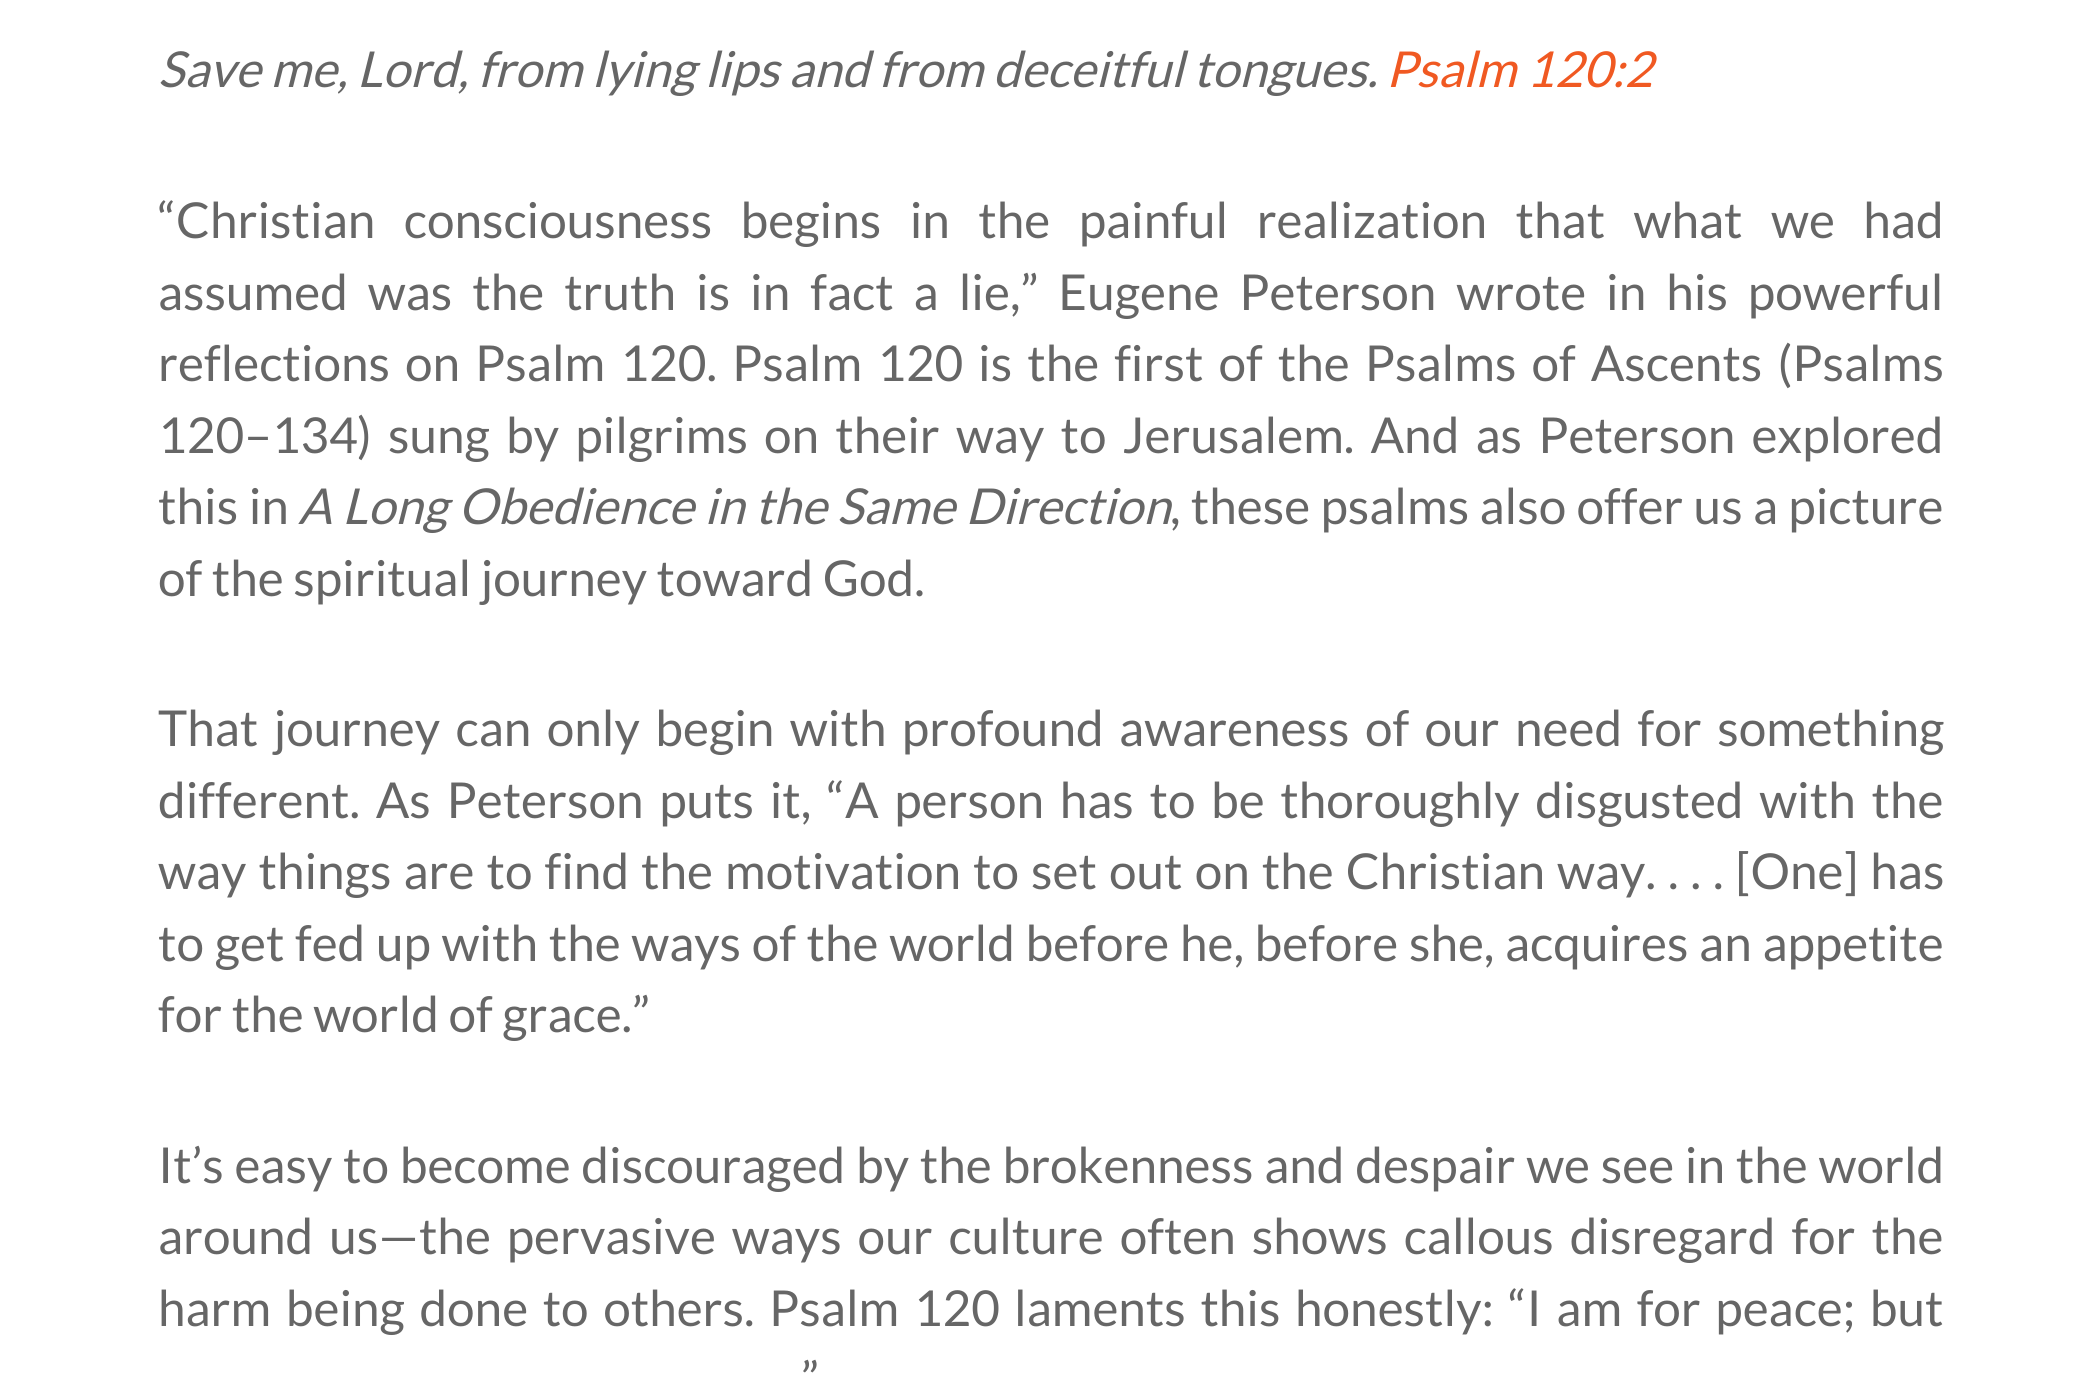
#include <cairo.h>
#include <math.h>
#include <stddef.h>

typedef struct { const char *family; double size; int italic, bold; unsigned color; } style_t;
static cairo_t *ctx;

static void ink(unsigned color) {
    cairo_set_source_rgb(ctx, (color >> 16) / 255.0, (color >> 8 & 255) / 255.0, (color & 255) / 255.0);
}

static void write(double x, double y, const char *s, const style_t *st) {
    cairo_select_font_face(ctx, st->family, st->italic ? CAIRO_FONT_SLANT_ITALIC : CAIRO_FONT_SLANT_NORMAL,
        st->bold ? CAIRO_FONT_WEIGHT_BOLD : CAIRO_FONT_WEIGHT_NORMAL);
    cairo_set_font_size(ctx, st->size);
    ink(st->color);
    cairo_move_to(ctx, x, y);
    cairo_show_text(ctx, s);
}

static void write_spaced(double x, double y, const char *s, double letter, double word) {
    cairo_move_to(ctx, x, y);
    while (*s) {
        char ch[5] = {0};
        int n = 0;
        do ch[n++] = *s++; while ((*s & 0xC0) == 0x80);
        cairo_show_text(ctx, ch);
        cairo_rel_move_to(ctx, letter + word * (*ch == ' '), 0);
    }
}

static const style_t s1 = {"Lato", 49.5, 1, 0, 0x666666};
static const style_t s2 = {"Lato", 49.5, 1, 0, 0xf05922};
static const style_t s3 = {"Lato", 49.5, 0, 0, 0x666666};

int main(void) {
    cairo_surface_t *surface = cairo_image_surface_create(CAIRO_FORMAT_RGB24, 2099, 1376);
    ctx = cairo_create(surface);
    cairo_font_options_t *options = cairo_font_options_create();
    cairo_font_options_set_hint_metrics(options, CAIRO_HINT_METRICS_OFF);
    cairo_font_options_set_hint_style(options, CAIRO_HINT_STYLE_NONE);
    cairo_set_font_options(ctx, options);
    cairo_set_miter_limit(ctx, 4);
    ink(0xffffff);
    cairo_paint(ctx);
    write(158, 87, "Save me, Lord, from lying lips and from deceitful tongues.", &s1);
    write(1386, 87, "Psalm 120:2", &s2);
    cairo_select_font_face(ctx, "Lato", CAIRO_FONT_SLANT_NORMAL, CAIRO_FONT_WEIGHT_NORMAL);
    ink(0x666666);
    write_spaced(158, 238, "“Christian consciousness begins in the painful realization that what we had", 0, 18.9);
    write_spaced(158, 310, "assumed was the truth is in fact a lie,” Eugene Peterson wrote in his powerful", 0, 10.4);
    write_spaced(158, 381, "reflections on Psalm 120. Psalm 120", 0, 5.5);
    write_spaced(978, 381, "is the first of the Psalms of Ascents (Psalms", 0, 5.5);
    write(158, 453, "120–134", &s3);
    write_spaced(357, 453, ") sung by pilgrims on their way to Jerusalem. And as Peterson explored", 0, 6.6);
    write_spaced(158, 524, "this in", 0, 1);
    cairo_select_font_face(ctx, "Lato", CAIRO_FONT_SLANT_ITALIC, CAIRO_FONT_WEIGHT_NORMAL);
    write_spaced(298, 524, "A Long Obedience in the Same Direction", 0, 0.75);
    cairo_select_font_face(ctx, "Lato", CAIRO_FONT_SLANT_NORMAL, CAIRO_FONT_WEIGHT_NORMAL);
    write_spaced(1170, 524, ", these psalms also offer us a picture", 0, 0.75);
    write(158, 596, "of the spiritual journey toward God.", &s3);
    write_spaced(158, 746, "That journey can only begin with profound awareness of our need for something", 0, 5.9);
    write_spaced(158, 818, "different. As Peterson puts it, “A person has to be thoroughly disgusted with the", 0, 6.1);
    write_spaced(158, 889, "way things are to find the motivation to set out on the Christian way. . . . [One] has", 0, 2.5);
    write_spaced(158, 961, "to get fed up with the ways of the world before he, before she, acquires an appetite", 0, 1.1);
    write(158, 1032, "for the world of grace.”", &s3);
    write_spaced(158, 1183, "It’s easy to become discouraged by the brokenness and despair we see in the world", 0, 1.2);
    write_spaced(158, 1254, "around us—the pervasive ways our culture often shows callous disregard for the", 0, 6.4);
    write_spaced(158, 1326, "harm being done to others. Psalm 120", 0, 5);
    write_spaced(1014, 1326, "laments this honestly: “I am for peace; but", 0, 5);
    write(801, 1397, "”", &s3);
    cairo_surface_write_to_png(surface, "screenshot.png");
    cairo_font_options_destroy(options);
    cairo_destroy(ctx);
    cairo_surface_destroy(surface);
    return 0;
}
